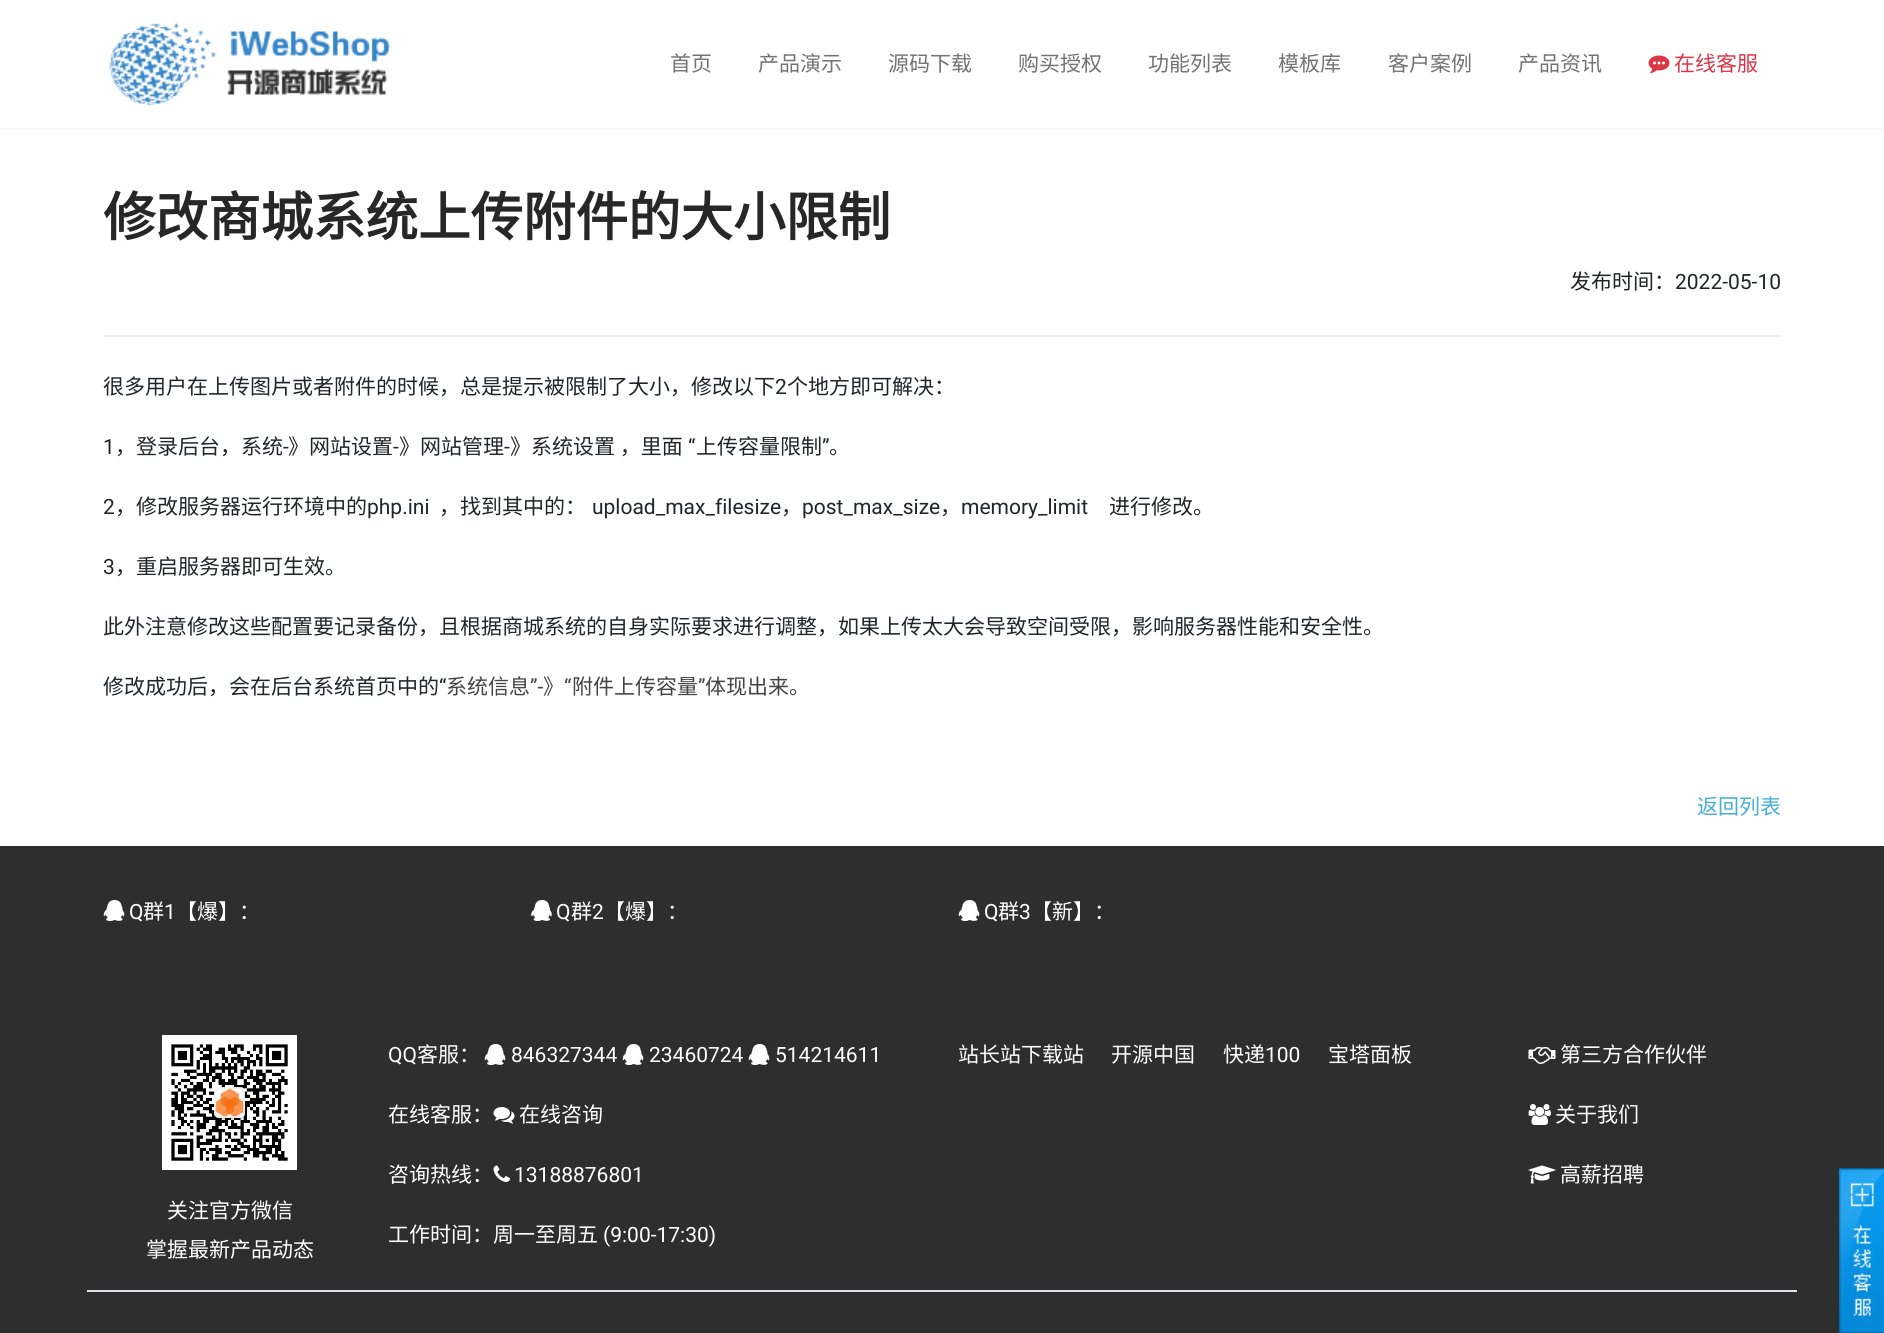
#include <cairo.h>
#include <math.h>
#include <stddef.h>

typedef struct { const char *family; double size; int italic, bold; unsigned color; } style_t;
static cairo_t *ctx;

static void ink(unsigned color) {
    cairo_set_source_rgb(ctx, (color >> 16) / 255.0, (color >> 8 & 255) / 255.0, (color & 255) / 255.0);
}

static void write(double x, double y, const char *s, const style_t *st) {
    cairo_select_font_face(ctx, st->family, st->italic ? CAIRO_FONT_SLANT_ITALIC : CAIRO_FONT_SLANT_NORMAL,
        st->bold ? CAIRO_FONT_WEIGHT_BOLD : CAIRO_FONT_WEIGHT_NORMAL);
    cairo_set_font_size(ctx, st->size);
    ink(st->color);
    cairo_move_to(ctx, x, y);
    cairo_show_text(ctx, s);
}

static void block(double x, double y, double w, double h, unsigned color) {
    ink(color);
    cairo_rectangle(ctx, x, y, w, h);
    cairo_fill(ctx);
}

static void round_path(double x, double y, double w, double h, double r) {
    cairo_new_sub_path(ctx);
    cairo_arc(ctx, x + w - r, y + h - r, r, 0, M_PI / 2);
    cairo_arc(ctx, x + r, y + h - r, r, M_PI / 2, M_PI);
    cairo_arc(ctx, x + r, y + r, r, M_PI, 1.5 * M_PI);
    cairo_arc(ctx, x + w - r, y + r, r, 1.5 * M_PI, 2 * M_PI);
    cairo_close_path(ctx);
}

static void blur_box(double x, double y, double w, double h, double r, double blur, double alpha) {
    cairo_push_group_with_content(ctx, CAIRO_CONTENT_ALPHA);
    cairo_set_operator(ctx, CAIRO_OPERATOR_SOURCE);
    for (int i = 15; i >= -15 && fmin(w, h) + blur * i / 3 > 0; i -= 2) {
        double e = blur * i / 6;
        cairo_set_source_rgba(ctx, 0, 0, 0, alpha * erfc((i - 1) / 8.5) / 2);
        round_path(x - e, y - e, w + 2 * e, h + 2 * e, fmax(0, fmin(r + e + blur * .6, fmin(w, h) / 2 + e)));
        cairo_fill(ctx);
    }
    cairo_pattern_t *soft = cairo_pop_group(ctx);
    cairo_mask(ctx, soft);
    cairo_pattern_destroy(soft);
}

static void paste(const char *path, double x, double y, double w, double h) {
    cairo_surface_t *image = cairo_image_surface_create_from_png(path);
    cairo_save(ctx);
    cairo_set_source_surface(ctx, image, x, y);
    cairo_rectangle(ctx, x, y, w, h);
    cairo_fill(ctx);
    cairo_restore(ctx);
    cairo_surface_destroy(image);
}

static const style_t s1 = {"Noto Sans CJK SC", 21, 0, 0, 0x737373};
static const style_t s2 = {"Noto Sans CJK SC", 21, 0, 0, 0xdc3545};
static const style_t s3 = {"Noto Sans CJK SC", 52.5, 0, 1, 0x272727};
static const style_t s4 = {"Noto Sans CJK SC", 21, 0, 0, 0x212529};
static const style_t s5 = {"Roboto", 21, 0, 0, 0x212529};
static const style_t s6 = {"Noto Sans CJK SC", 21, 0, 0, 0x444444};
static const style_t s7 = {"Roboto", 21, 0, 0, 0x444444};
static const style_t s8 = {"Noto Sans CJK SC", 21, 0, 0, 0x45aed6};
static const style_t s9 = {"Roboto", 21, 0, 0, 0xffffff};
static const style_t s10 = {"Noto Sans CJK SC", 21, 0, 0, 0xffffff};

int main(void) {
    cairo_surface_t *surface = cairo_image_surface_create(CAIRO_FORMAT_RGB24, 1884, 1333);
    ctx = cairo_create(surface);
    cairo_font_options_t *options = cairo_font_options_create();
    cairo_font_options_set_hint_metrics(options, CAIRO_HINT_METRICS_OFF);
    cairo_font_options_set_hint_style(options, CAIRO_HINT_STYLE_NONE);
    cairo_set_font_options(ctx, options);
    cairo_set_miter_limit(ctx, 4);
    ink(0xffffff);
    cairo_paint(ctx);
    cairo_save(ctx);
    cairo_set_fill_rule(ctx, CAIRO_FILL_RULE_EVEN_ODD);
    cairo_new_path(ctx);
    cairo_move_to(ctx, 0, 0);
    cairo_line_to(ctx, 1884, 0);
    cairo_line_to(ctx, 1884, 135);
    cairo_line_to(ctx, 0, 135);
    cairo_close_path(ctx);
    cairo_move_to(ctx, 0, 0);
    cairo_line_to(ctx, 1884, 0);
    cairo_line_to(ctx, 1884, 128);
    cairo_line_to(ctx, 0, 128);
    cairo_close_path(ctx);
    cairo_clip(ctx);
    ink(0x000000);
    blur_box(0, 0, 1884, 128, 0, 2, 0.1);
    cairo_restore(ctx);
    cairo_set_source_rgba(ctx, 1, 1, 1, 0.9);
    cairo_rectangle(ctx, 0, 127, 1884, 1);
    cairo_fill(ctx);
    paste("pic1.png", 109, 22, 282, 84);
    write(670, 71, "首页", &s1);
    write(758, 71, "产品演示", &s1);
    write(888, 71, "源码下载", &s1);
    write(1018, 71, "购买授权", &s1);
    write(1148, 71, "功能列表", &s1);
    write(1278, 71, "模板库", &s1);
    write(1388, 71, "客户案例", &s1);
    write(1518, 71, "产品资讯", &s1);
    paste("pic2.png", 1648, 55, 22, 19);
    write(1674, 71, "在线客服", &s2);
    block(104, 335, 1678, 2, 0xeeeeee);
    write(103, 236, "修改商城系统上传附件的大小限制", &s3);
    write(1570, 289, "发布时间：", &s4);
    write(1675, 289, "2022-05-10", &s5);
    write(103, 394, "很多用户在上传图片或者附件的时候，总是提示被限制了大小，修改以下", &s4);
    write(775, 394, "2", &s5);
    write(787, 394, "个地方即可解决：", &s4);
    write(103, 454, "1", &s5);
    write(115, 454, "，登录后台，系统", &s4);
    write(283, 454, "-", &s5);
    write(288, 454, "》网站设置", &s4);
    write(393, 454, "-", &s5);
    write(399, 454, "》网站管理", &s4);
    write(504, 454, "-", &s5);
    write(510, 454, "》系统设置 ，里面", &s4);
    write(688, 454, "“", &s5);
    write(696, 454, "上传容量限制", &s4);
    write(822, 454, "”", &s5);
    write(829, 454, "。", &s4);
    write(103, 514, "2", &s5);
    write(115, 514, "，修改服务器运行环境中的", &s4);
    write(367, 514, "php.ini", &s5);
    write(439, 514, "，找到其中的：", &s4);
    write(592, 514, "upload_max_filesize", &s5);
    write(781, 514, "，", &s4);
    write(802, 514, "post_max_size", &s5);
    write(940, 514, "，", &s4);
    write(961, 514, "memory_limit", &s5);
    write(1109, 514, "进行修改。", &s4);
    write(103, 574, "3", &s5);
    write(115, 574, "，重启服务器即可生效。", &s4);
    write(103, 634, "此外注意修改这些配置要记录备份，且根据商城系统的自身实际要求进行调整，如果上传太大会导致空间受限，影响服务器性能和安全性。", &s4);
    write(103, 694, "修改成功后，会在后台系统首页中的", &s4);
    write(439, 694, "“", &s5);
    write(446, 694, "系统信息", &s6);
    write(530, 694, "”-", &s7);
    write(543, 694, "》", &s6);
    write(564, 694, "“", &s7);
    write(572, 694, "附件上传容量", &s6);
    write(698, 694, "”", &s7);
    write(705, 694, "体现出来。", &s6);
    write(1697, 814, "返回列表", &s8);
    block(0, 846, 1884, 487, 0x2e2e2e);
    paste("pic3.png", 103, 900, 22, 21);
    write(129, 919, "Q", &s9);
    write(143, 919, "群", &s10);
    write(164, 919, "1", &s9);
    write(176, 919, "【爆】：", &s10);
    paste("pic4.png", 531, 900, 21, 21);
    write(556, 919, "Q", &s9);
    write(571, 919, "群", &s10);
    write(592, 919, "2", &s9);
    write(604, 919, "【爆】：", &s10);
    paste("pic3.png", 958, 900, 22, 21);
    write(984, 919, "Q", &s9);
    write(998, 919, "群", &s10);
    write(1019, 919, "3", &s9);
    write(1031, 919, "【新】：", &s10);
    block(87, 1290, 1710, 2, 0xdee2e6);
    write(388, 1062, "QQ", &s9);
    write(417, 1062, "客服：", &s10);
    paste("pic3.png", 484, 1044, 22, 21);
    write(511, 1062, "846327344", &s9);
    paste("pic3.png", 622, 1044, 22, 21);
    write(649, 1062, "23460724", &s9);
    paste("pic3.png", 748, 1044, 22, 21);
    write(775, 1062, "514214611", &s9);
    write(388, 1122, "在线客服：", &s10);
    paste("pic5.png", 493, 1107, 22, 17);
    write(519, 1122, "在线咨询", &s10);
    write(388, 1182, "咨询热线：", &s10);
    paste("pic6.png", 493, 1165, 17, 17);
    write(514, 1182, "13188876801", &s9);
    write(388, 1242, "工作时间：周一至周五", &s10);
    write(603, 1242, "(9:00-17:30)", &s9);
    write(958, 1062, "站长站下载站", &s10);
    write(1111, 1062, "开源中国", &s10);
    write(1223, 1062, "快递", &s10);
    write(1265, 1062, "100", &s9);
    write(1328, 1062, "宝塔面板", &s10);
    paste("pic7.png", 1528, 1047, 28, 17);
    write(1560, 1062, "第三方合作伙伴", &s10);
    paste("pic8.png", 1528, 1104, 23, 21);
    write(1555, 1122, "关于我们", &s10);
    paste("pic9.png", 1528, 1165, 28, 19);
    write(1560, 1182, "高薪招聘", &s10);
    paste("pic10.png", 162, 1035, 135, 135);
    write(167, 1218, "关注官方微信", &s10);
    write(146, 1257, "掌握最新产品动态", &s10);
    paste("pic11.png", 1839, 1168, 45, 165);
    cairo_surface_write_to_png(surface, "screenshot.png");
    cairo_font_options_destroy(options);
    cairo_destroy(ctx);
    cairo_surface_destroy(surface);
    return 0;
}
